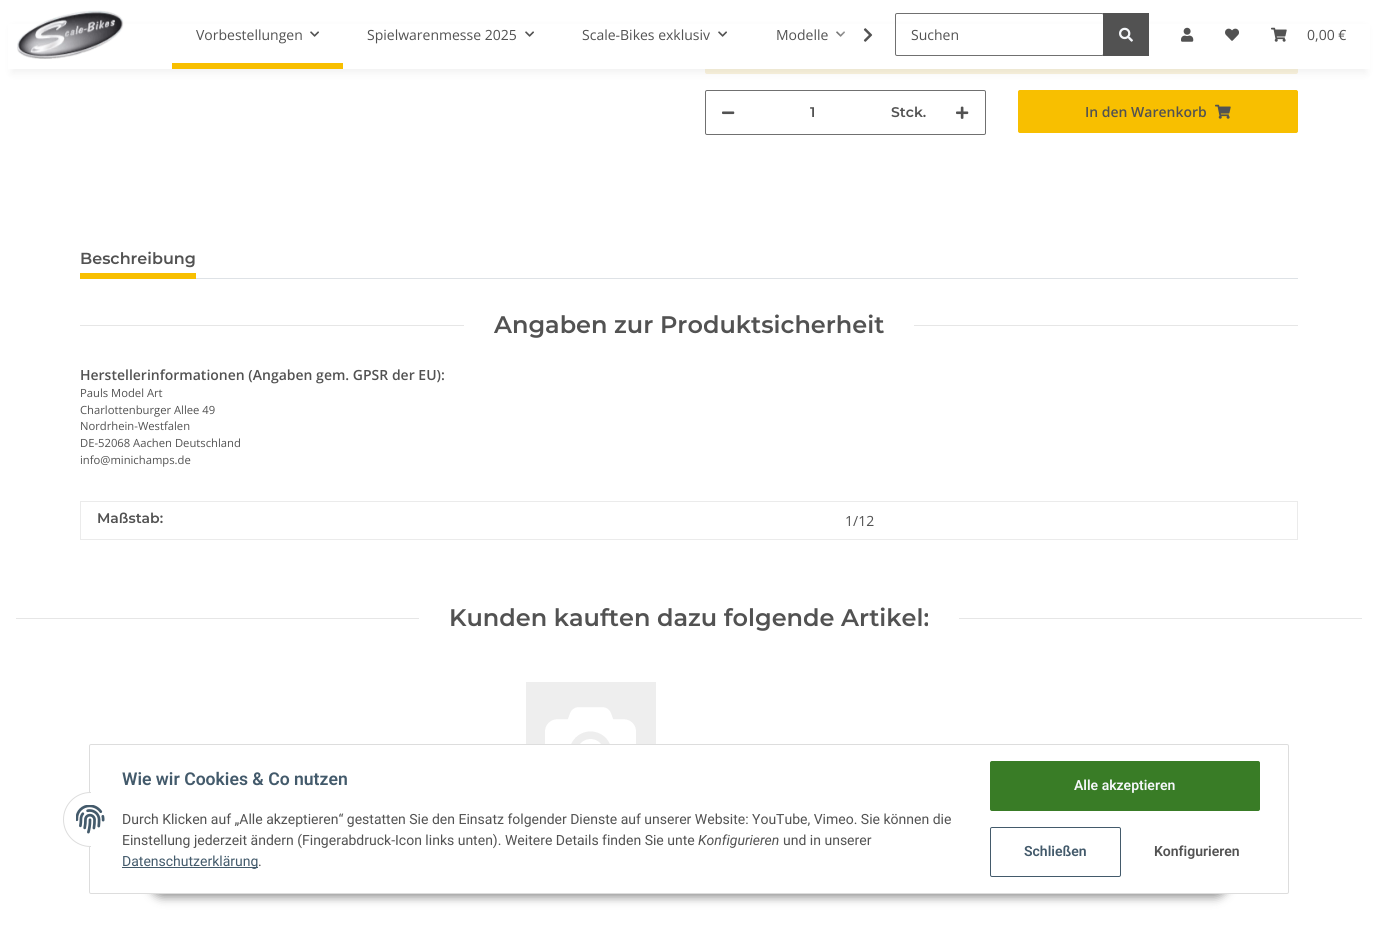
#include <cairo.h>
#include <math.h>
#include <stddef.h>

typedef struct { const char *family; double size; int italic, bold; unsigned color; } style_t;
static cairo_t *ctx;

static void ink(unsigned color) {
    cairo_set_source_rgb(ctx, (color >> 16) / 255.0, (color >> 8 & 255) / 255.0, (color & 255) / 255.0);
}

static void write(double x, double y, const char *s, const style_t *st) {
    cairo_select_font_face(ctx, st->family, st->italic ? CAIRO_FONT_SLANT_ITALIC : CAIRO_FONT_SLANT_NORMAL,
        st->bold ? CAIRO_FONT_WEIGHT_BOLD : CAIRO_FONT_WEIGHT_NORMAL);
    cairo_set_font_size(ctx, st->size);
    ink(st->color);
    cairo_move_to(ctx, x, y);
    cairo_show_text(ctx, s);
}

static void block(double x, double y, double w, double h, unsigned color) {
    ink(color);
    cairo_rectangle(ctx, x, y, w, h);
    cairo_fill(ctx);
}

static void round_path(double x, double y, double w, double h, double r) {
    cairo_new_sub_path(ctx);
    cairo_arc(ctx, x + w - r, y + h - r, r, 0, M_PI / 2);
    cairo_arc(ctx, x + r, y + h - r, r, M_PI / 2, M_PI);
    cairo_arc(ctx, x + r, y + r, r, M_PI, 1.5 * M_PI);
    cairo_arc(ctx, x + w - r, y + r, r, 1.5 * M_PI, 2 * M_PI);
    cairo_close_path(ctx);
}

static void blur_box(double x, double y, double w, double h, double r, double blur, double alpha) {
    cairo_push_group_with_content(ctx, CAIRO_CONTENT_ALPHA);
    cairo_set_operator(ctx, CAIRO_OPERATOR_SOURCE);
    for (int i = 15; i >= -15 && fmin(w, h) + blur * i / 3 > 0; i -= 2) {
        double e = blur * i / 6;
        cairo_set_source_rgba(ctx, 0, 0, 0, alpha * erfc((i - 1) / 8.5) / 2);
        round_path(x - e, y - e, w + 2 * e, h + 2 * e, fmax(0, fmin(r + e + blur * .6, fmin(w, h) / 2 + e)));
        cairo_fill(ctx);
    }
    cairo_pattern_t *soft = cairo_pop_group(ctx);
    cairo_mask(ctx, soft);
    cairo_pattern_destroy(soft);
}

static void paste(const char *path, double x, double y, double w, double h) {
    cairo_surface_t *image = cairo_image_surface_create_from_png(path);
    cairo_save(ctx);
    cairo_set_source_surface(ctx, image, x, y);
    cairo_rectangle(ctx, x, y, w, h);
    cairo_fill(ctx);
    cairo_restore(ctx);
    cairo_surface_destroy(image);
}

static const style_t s1 = {"Open Sans", 14, 0, 0, 0x525252};
static const style_t s2 = {"Montserrat SemiBold", 14, 0, 0, 0x525252};
static const style_t s3 = {"Open Sans SemiBold", 14, 0, 0, 0x525252};
static const style_t s4 = {"Montserrat SemiBold", 16, 0, 0, 0x525252};
static const style_t s5 = {"Montserrat SemiBold", 24, 0, 0, 0x525252};
static const style_t s6 = {"Open Sans", 11.25, 0, 0, 0x525252};
static const style_t s7 = {"Roboto SemiBold", 17.6, 0, 0, 0x435a6b};
static const style_t s8 = {"Roboto", 14, 0, 0, 0x525252};
static const style_t s9 = {"Roboto", 14, 1, 0, 0x525252};
static const style_t s10 = {"Roboto", 14, 0, 0, 0x435a6b};
static const style_t s11 = {"Roboto SemiBold", 14, 0, 0, 0xf5f7fa};
static const style_t s12 = {"Roboto SemiBold", 14, 0, 0, 0x435a6b};
static const style_t s13 = {"Roboto SemiBold", 14, 0, 0, 0x525252};

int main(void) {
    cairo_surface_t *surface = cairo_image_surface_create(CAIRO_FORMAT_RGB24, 1378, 926);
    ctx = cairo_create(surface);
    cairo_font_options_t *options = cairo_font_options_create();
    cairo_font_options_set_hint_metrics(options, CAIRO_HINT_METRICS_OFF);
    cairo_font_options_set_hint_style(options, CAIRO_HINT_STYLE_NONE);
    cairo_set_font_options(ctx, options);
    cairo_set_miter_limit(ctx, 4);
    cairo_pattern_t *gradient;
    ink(0xffffff);
    cairo_paint(ctx);
    ink(0xf9f2dc);
    round_path(705.5, 27.5, 592, 46, 1.5);
    cairo_fill_preserve(ctx);
    cairo_set_line_width(ctx, 1);
    cairo_stroke(ctx);
    ink(0x000000);
    blur_box(12, 28, 1354, 45, 0, 4.5, 0.06);
    block(8, 24, 1362, 45, 0xffffff);
    paste("pic1.png", 17, 10, 107, 49);
    write(196, 40, "Vorbestellungen", &s1);
    paste("pic2.png", 310, 31, 9, 6);
    block(172, 63, 171, 6, 0xf8bf00);
    write(367, 40, "Spielwarenmesse 2025", &s1);
    paste("pic2.png", 525, 31, 9, 6);
    write(582, 40, "Scale-Bikes exklusiv", &s1);
    paste("pic2.png", 718, 31, 9, 6);
    write(776, 40, "Modelle", &s1);
    paste("pic2.png", 836, 31, 9, 6);
    gradient = cairo_pattern_create_linear(831, 35, 879, 35);
    cairo_pattern_add_color_stop_rgba(gradient, 0, 1, 1, 1, 0.01);
    cairo_pattern_add_color_stop_rgba(gradient, 0.7, 1, 1, 1, 1);
    cairo_set_source(ctx, gradient);
    cairo_pattern_destroy(gradient);
    cairo_rectangle(ctx, 836, 31, 9, 6);
    cairo_fill(ctx);
    paste("pic3.png", 863, 28, 10, 14);
    round_path(895.5, 13.5, 208, 42, 1.5);
    ink(0x707070);
    cairo_stroke(ctx);
    write(911, 40, "Suchen", &s1);
    block(1103, 13, 46, 43, 0x525252);
    paste("pic4.png", 1119, 27, 14, 15);
    paste("pic5.png", 1181, 27, 13, 15);
    paste("pic6.png", 1225, 28, 14, 13);
    paste("pic7.png", 1271, 27, 16, 15);
    write(1307, 40, "0,00 €", &s1);
    round_path(705.5, 90.5, 280, 44, 1.5);
    ink(0x707070);
    cairo_stroke(ctx);
    paste("pic8.png", 722, 111, 13, 4);
    write(810, 117, "1", &s2);
    write(891, 117, "Stck.", &s2);
    paste("pic9.png", 956, 106, 13, 13);
    ink(0xf8bf00);
    round_path(1018.5, 90.5, 279, 42, 1.5);
    cairo_fill_preserve(ctx);
    cairo_stroke(ctx);
    write(1085, 117, "In den Warenkorb", &s3);
    paste("pic10.png", 1215, 104, 16, 15);
    block(196, 278, 1102, 1, 0xdee2e6);
    write(80, 264, "Beschreibung", &s4);
    block(80, 273, 116, 6, 0xf8bf00);
    block(80, 325, 384, 1, 0xe6e6e6);
    write(494, 333, "Angaben zur Produktsicherheit", &s5);
    block(914, 325, 384, 1, 0xe6e6e6);
    write(80, 380, "Herstellerinformationen (Angaben gem. GPSR der EU):", &s3);
    write(80, 397, "Pauls Model Art", &s6);
    write(80, 414, "Charlottenburger Allee 49", &s6);
    write(80, 430, "Nordrhein-Westfalen", &s6);
    write(80, 447, "DE-52068 Aachen Deutschland", &s6);
    write(80, 464, "info@minichamps.de", &s6);
    block(80, 501, 1218, 1, 0xebebeb);
    block(1297, 501, 1, 39, 0xebebeb);
    block(80, 539, 1218, 1, 0xebebeb);
    block(80, 501, 1, 39, 0xebebeb);
    write(97, 523, "Maßstab:", &s2);
    write(845, 526, "1/12", &s1);
    block(16, 618, 403, 1, 0xe6e6e6);
    write(449, 626, "Kunden kauften dazu folgende Artikel:", &s5);
    block(959, 618, 403, 1, 0xe6e6e6);
    paste("pic11.png", 526, 682, 130, 62);
    ink(0x000000);
    blur_box(150, 865, 1078, 32, 16, 5, 0.45);
    ink(0xffffff);
    round_path(89.5, 744.5, 1199, 149, 1.5);
    cairo_fill_preserve(ctx);
    ink(0xdddddd);
    cairo_stroke(ctx);
    ink(0xffffff);
    cairo_arc(ctx, 90.5, 819.5, 27, 0, 2 * M_PI);
    cairo_fill_preserve(ctx);
    ink(0xdddddd);
    cairo_stroke(ctx);
    block(91, 792, 27, 55, 0xffffff);
    paste("pic12.png", 76, 805, 29, 29);
    write(122, 785, "Wie wir Cookies & Co nutzen", &s7);
    write(122, 824, "Durch Klicken auf „Alle akzeptieren“ gestatten Sie den Einsatz folgender Dienste auf unserer Website: YouTube, Vimeo. Sie können die", &s8);
    write(122, 845, "Einstellung jederzeit ändern (Fingerabdruck-Icon links unten). Weitere Details finden Sie unte", &s8);
    write(698, 845, "Konfigurieren", &s9);
    write(783, 845, "und in unserer", &s8);
    block(122, 867, 136, 1, 0x435a6b);
    write(122, 866, "Datenschutzerklärung", &s10);
    write(258, 866, ".", &s8);
    ink(0x397c26);
    round_path(990.5, 761.5, 269, 49, 1.5);
    cairo_fill_preserve(ctx);
    cairo_stroke(ctx);
    write(1074, 790, "Alle akzeptieren", &s11);
    round_path(990.5, 827.5, 130, 49, 1.5);
    ink(0x435a6b);
    cairo_stroke(ctx);
    write(1024, 856, "Schließen", &s12);
    write(1154, 856, "Konfigurieren", &s13);
    cairo_surface_write_to_png(surface, "screenshot.png");
    cairo_font_options_destroy(options);
    cairo_destroy(ctx);
    cairo_surface_destroy(surface);
    return 0;
}
